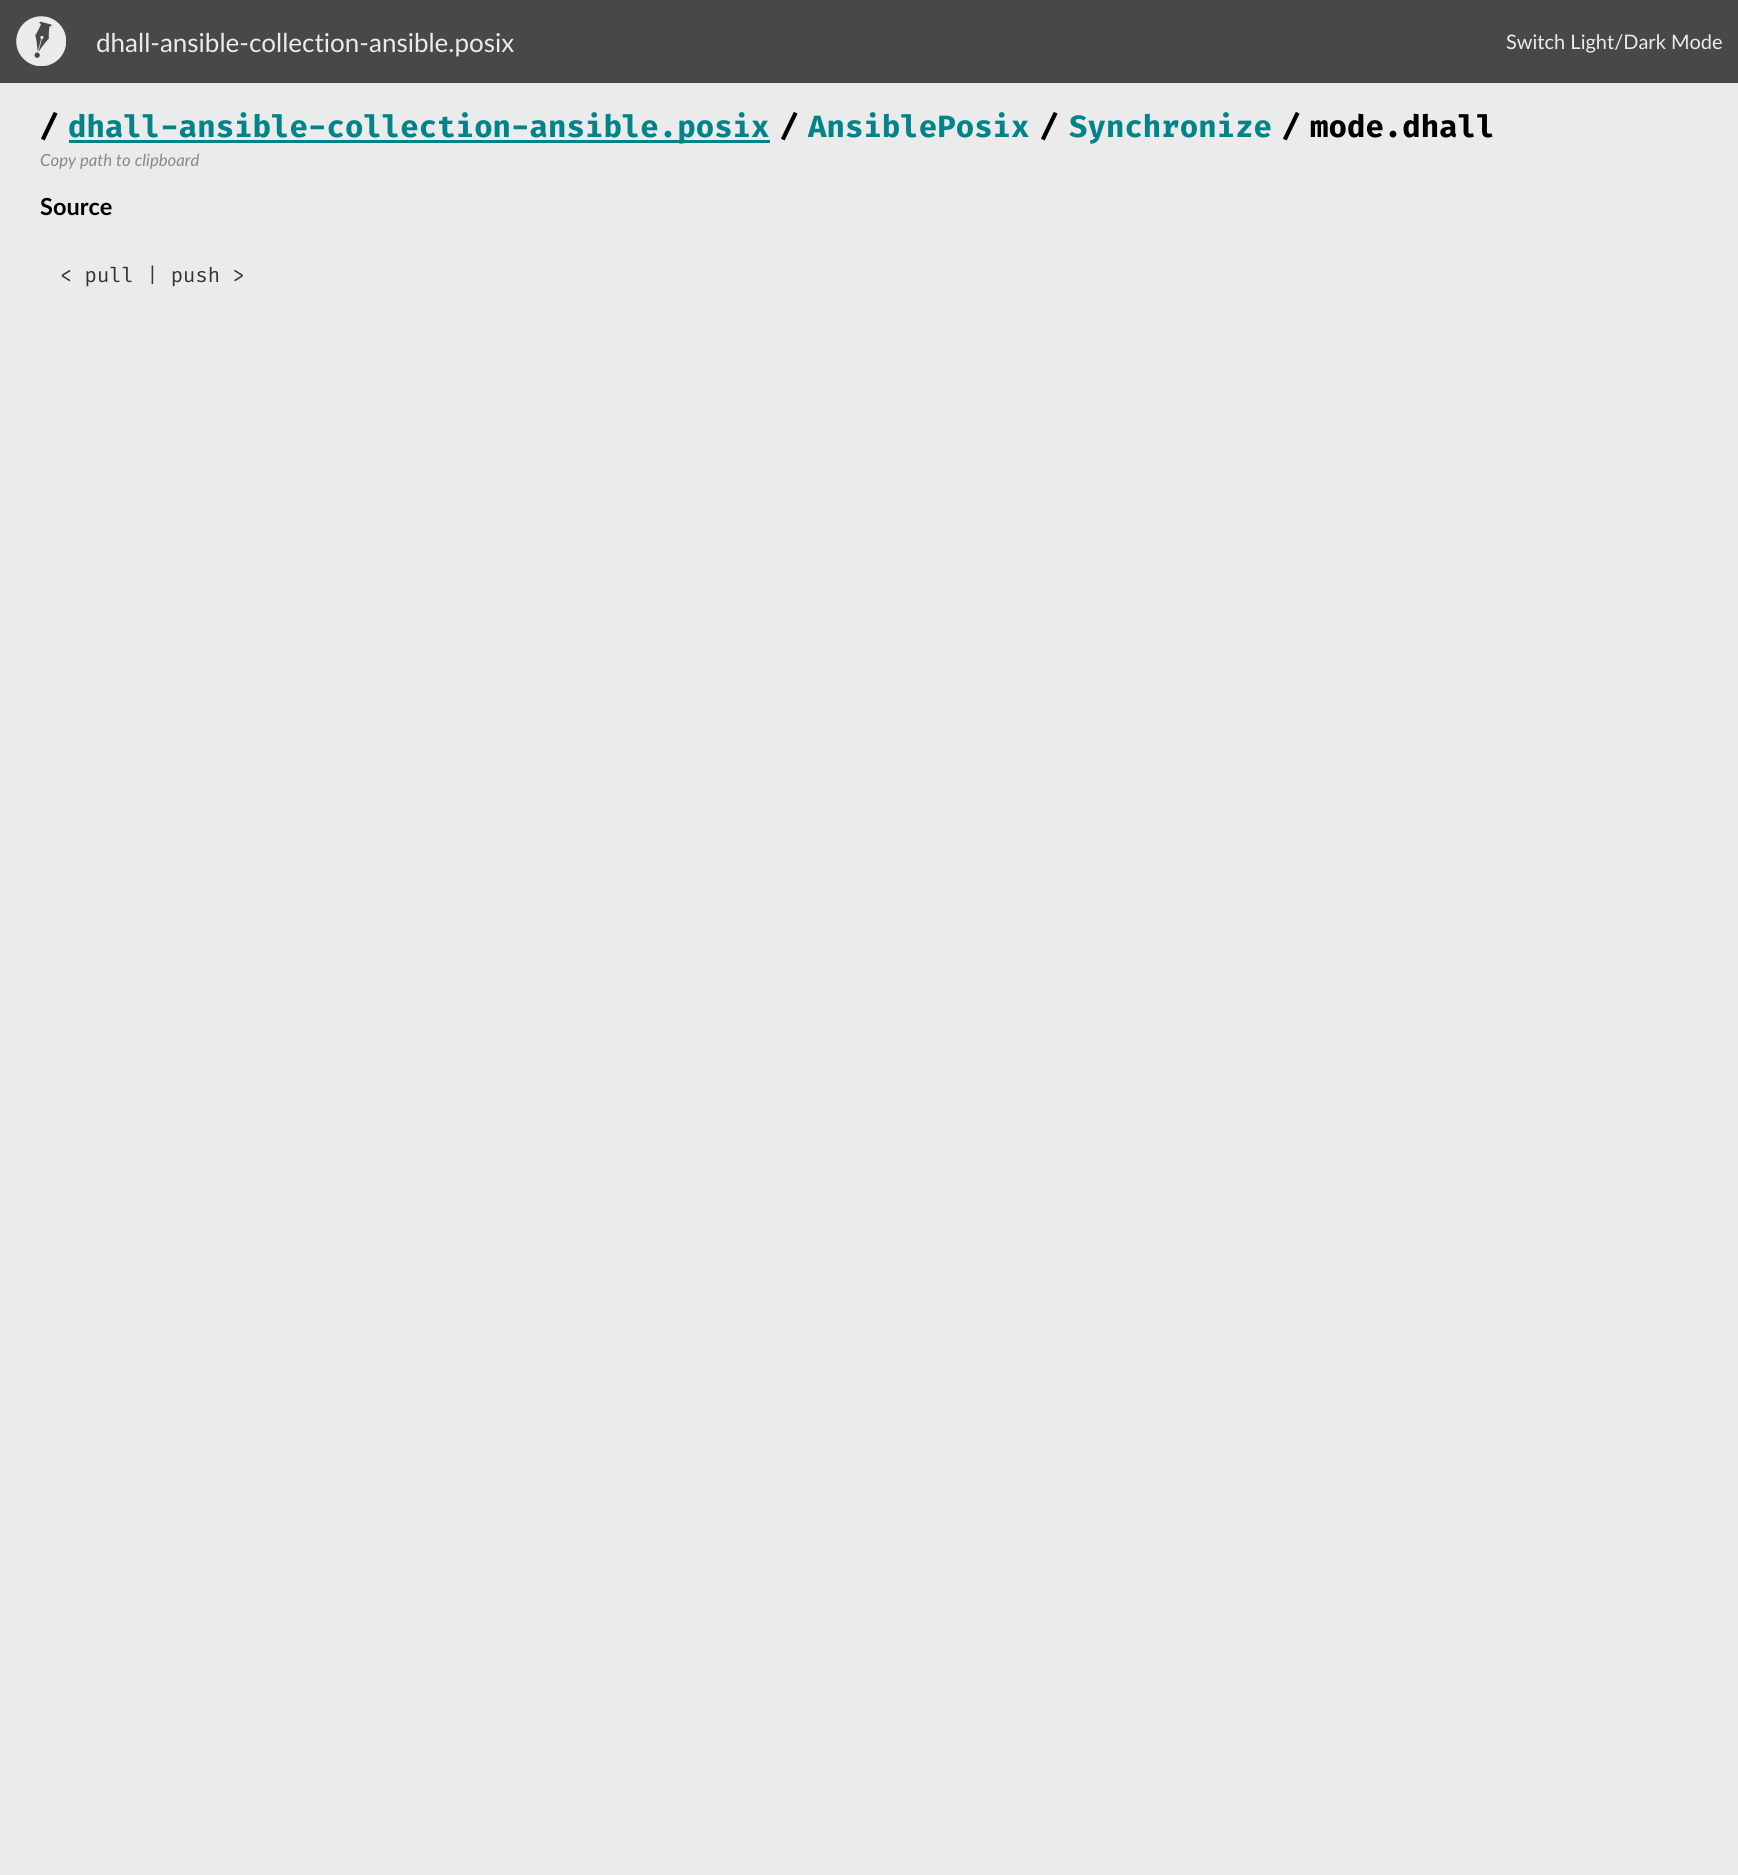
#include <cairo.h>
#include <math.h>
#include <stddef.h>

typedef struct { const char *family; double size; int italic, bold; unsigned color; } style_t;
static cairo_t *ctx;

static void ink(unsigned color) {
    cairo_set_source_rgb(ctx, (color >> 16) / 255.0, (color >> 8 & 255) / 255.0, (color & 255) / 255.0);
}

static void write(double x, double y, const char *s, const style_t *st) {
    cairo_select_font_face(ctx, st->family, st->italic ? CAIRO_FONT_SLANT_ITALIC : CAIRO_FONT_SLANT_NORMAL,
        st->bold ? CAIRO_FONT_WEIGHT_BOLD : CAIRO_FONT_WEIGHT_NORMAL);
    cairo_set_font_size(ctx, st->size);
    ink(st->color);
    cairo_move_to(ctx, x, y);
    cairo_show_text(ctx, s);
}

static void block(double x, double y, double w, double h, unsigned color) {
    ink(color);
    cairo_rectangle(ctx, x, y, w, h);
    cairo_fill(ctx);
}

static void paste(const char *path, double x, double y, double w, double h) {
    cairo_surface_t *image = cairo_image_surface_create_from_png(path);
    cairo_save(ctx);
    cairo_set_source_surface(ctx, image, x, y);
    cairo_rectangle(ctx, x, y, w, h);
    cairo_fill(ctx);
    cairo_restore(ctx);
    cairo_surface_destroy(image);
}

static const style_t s1 = {"Lato", 26, 0, 0, 0xebebeb};
static const style_t s2 = {"Lato", 20, 0, 0, 0xebebeb};
static const style_t s3 = {"Fira Code", 30, 0, 1, 0x000000};
static const style_t s4 = {"Fira Code", 30, 0, 1, 0x008489};
static const style_t s5 = {"Lato", 16.75, 1, 0, 0x888888};
static const style_t s6 = {"Lato", 23.5, 0, 1, 0x000000};
static const style_t s7 = {"Fira Code", 20, 0, 0, 0x333333};

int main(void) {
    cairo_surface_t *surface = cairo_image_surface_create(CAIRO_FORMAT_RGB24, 1738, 1875);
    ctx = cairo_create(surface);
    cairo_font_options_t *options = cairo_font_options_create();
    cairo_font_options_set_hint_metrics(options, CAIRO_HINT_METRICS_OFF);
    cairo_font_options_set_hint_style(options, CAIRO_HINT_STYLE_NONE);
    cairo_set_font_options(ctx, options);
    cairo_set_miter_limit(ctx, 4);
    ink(0xebebeb);
    cairo_paint(ctx);
    block(0, 0, 1738, 83, 0x484848);
    paste("pic1.png", 16, 16, 50, 50);
    write(96, 52, "dhall-ansible-collection-ansible.posix", &s1);
    write(1506, 49, "Switch Light/Dark Mode", &s2);
    write(40, 137, "/", &s3);
    block(69, 140, 701, 3, 0x008489);
    write(68, 137, "dhall-ansible-collection-ansible.posix", &s4);
    write(780, 137, "/", &s3);
    write(808, 137, "AnsiblePosix", &s4);
    write(1040, 137, "/", &s3);
    write(1069, 137, "Synchronize", &s4);
    write(1282, 137, "/", &s3);
    write(1310, 137, "mode.dhall", &s3);
    write(40, 166, "Copy path to clipboard", &s5);
    write(40, 215, "Source", &s6);
    write(60, 282, "< pull | push >", &s7);
    cairo_surface_write_to_png(surface, "screenshot.png");
    cairo_font_options_destroy(options);
    cairo_destroy(ctx);
    cairo_surface_destroy(surface);
    return 0;
}
